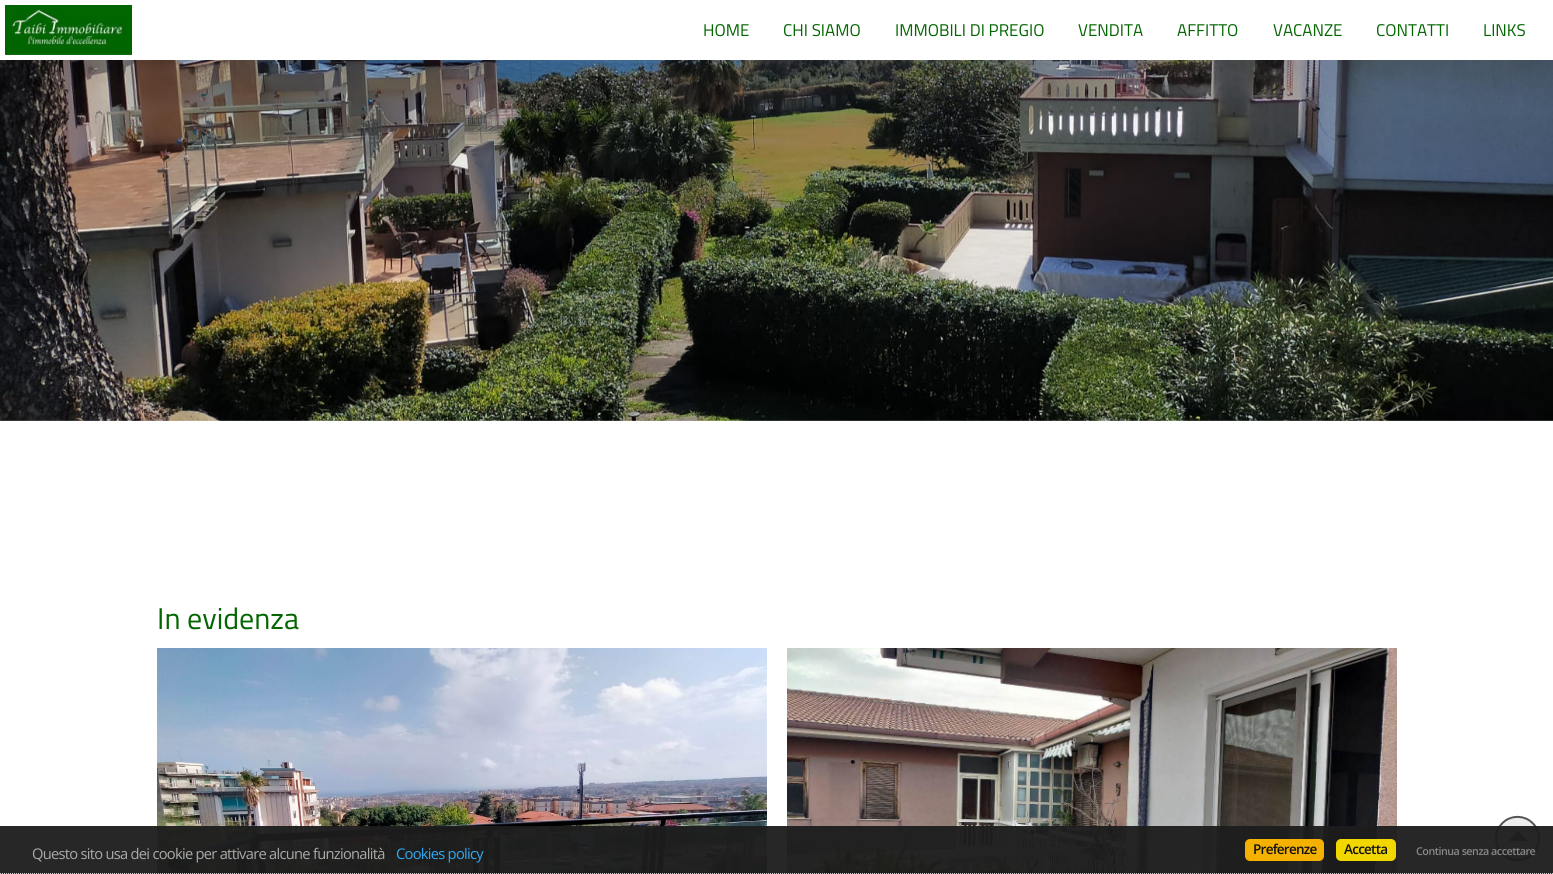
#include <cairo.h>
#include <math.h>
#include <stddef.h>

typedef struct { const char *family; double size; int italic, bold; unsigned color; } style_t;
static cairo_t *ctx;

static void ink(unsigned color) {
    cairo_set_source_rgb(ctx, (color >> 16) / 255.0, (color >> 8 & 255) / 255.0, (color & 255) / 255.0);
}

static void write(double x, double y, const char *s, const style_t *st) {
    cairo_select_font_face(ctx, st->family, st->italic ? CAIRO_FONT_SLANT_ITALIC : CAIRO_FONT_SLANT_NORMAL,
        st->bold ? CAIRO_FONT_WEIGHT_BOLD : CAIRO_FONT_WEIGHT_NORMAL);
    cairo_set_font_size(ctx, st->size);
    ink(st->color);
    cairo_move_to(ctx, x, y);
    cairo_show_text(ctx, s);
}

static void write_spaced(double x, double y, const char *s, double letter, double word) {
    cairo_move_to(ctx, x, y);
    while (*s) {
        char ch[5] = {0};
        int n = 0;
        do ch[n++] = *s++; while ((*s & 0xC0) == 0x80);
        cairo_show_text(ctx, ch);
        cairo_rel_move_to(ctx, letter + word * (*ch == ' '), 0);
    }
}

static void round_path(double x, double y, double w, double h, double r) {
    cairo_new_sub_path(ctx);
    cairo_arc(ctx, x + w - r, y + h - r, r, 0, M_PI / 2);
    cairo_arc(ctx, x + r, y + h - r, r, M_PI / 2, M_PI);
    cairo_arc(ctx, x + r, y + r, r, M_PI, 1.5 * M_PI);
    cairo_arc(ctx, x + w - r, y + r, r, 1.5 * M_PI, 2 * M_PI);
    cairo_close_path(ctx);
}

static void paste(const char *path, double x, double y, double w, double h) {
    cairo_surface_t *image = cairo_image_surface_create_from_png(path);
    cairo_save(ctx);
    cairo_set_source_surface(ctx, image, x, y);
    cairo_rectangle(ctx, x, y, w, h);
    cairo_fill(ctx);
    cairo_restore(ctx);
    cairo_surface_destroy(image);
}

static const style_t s1 = {"Titillium Web", 17, 0, 0, 0x036601};
static const style_t s2 = {"Titillium Web", 30, 0, 0, 0x036601};

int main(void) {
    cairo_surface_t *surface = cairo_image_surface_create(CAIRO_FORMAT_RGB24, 1553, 874);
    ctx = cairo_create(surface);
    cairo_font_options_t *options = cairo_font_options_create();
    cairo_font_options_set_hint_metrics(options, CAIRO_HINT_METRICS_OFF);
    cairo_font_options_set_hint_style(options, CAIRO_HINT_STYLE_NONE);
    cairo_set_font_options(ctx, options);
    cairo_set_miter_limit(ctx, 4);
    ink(0xffffff);
    cairo_paint(ctx);
    paste("pic1.png", 5, 5, 127, 50);
    write(703, 36, "HOME", &s1);
    write(783, 36, "CHI SIAMO", &s1);
    write(895, 36, "IMMOBILI DI PREGIO", &s1);
    write(1078, 36, "VENDITA", &s1);
    write(1177, 36, "AFFITTO", &s1);
    write(1273, 36, "VACANZE", &s1);
    write(1376, 36, "CONTATTI", &s1);
    write(1483, 36, "LINKS", &s1);
    paste("pic2.png", 0, 60, 1553, 361);
    write(157, 629, "In evidenza", &s2);
    paste("pic3.png", 157, 648, 610, 226);
    paste("pic4.png", 787, 648, 610, 226);
    paste("pic5.png", 1495, 816, 45, 46);
    paste("pic6.png", 1495, 815, 45, 46);
    cairo_set_source_rgba(ctx, 0.114, 0.114, 0.114, 0.95);
    cairo_rectangle(ctx, 0, 826, 1553, 48);
    cairo_fill(ctx);
    cairo_new_path(ctx);
    cairo_move_to(ctx, 0, 873.5);
    cairo_line_to(ctx, 1553, 873.5);
    ink(0xcccccc);
    cairo_set_line_width(ctx, 1);
    cairo_set_dash(ctx, (double[]){1, 1}, 2, 0);
    cairo_stroke(ctx);
    cairo_select_font_face(ctx, "Open Sans", CAIRO_FONT_SLANT_NORMAL, CAIRO_FONT_WEIGHT_NORMAL);
    cairo_set_font_size(ctx, 14.7);
    ink(0xaaaaaa);
    write_spaced(32, 859, "Questo sito usa dei cookie per attivare alcune funzionalità", -0.73, 0);
    ink(0x31a8f0);
    write_spaced(396, 859, "Cookies policy", -0.73, 0);
    ink(0xf4b100);
    round_path(1245, 839, 79, 22, 5);
    cairo_fill(ctx);
    cairo_select_font_face(ctx, "Open Sans SemiBold", CAIRO_FONT_SLANT_NORMAL, CAIRO_FONT_WEIGHT_NORMAL);
    cairo_set_font_size(ctx, 13.5);
    ink(0x111111);
    write_spaced(1253, 854, "Preferenze", -0.75, 0);
    ink(0xf1d600);
    round_path(1336, 839, 60, 22, 5);
    cairo_fill(ctx);
    ink(0x111111);
    write_spaced(1344, 854, "Accetta", -0.75, 0);
    cairo_set_font_size(ctx, 10.75);
    ink(0x888888);
    write_spaced(1416, 855, "Continua senza accettare", -0.5, 0);
    cairo_surface_write_to_png(surface, "screenshot.png");
    cairo_font_options_destroy(options);
    cairo_destroy(ctx);
    cairo_surface_destroy(surface);
    return 0;
}
